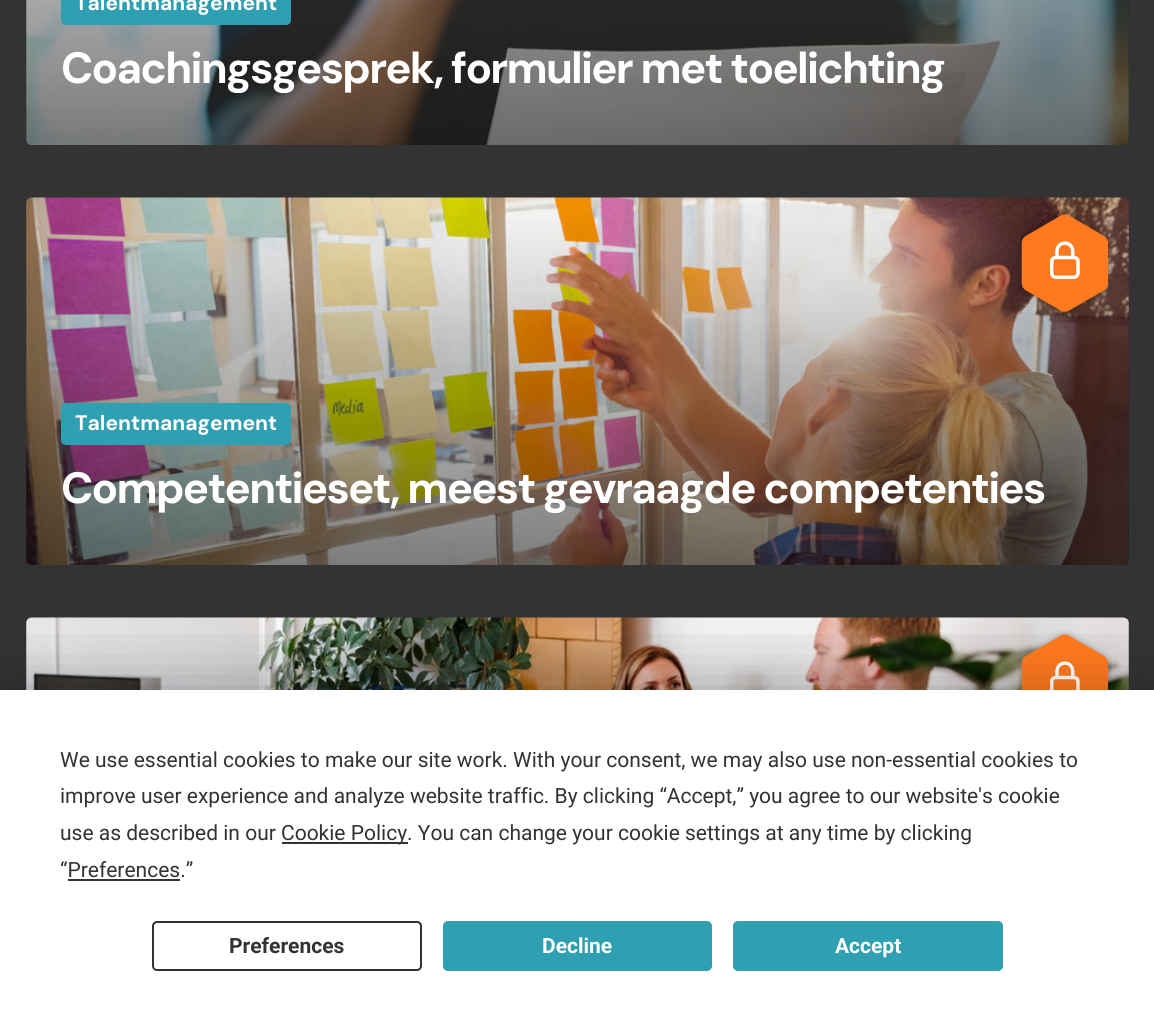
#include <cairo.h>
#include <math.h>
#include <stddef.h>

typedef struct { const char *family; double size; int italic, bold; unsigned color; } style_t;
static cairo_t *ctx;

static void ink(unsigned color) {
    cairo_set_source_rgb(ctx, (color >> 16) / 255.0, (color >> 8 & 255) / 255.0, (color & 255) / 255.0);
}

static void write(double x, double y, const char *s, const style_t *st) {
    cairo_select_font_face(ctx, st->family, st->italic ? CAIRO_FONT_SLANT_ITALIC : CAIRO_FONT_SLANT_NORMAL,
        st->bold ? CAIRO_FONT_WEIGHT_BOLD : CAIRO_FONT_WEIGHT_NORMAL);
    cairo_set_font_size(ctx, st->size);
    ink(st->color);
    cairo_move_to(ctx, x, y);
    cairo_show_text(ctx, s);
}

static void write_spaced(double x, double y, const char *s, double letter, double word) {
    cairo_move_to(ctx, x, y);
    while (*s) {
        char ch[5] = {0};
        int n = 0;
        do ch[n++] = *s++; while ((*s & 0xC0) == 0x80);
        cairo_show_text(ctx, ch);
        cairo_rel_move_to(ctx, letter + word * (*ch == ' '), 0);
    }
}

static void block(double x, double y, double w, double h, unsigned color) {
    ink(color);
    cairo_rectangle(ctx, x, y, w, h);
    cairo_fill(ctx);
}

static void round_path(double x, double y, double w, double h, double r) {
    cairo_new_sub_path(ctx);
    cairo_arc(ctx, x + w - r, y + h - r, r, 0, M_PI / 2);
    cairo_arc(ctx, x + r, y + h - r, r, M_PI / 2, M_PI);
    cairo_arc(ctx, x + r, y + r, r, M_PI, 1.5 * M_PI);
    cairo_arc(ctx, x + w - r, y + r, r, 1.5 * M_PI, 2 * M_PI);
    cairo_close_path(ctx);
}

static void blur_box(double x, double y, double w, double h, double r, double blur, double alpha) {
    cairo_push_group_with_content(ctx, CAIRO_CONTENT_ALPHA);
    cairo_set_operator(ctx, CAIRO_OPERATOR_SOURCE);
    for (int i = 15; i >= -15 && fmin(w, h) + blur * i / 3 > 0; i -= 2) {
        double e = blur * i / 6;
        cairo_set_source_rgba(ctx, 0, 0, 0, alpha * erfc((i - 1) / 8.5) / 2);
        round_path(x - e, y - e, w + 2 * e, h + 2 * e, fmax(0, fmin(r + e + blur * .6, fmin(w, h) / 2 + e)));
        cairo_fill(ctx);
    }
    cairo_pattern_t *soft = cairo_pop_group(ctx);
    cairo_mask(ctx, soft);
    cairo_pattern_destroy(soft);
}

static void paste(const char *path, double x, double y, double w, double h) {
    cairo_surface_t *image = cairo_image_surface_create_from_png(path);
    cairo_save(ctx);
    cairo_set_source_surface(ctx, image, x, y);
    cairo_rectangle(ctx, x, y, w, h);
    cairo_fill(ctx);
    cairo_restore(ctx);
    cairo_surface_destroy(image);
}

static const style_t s1 = {"DM Sans", 21, 0, 1, 0xffffff};
static const style_t s2 = {"Roboto", 21, 0, 0, 0x333333};
static const style_t s3 = {"Roboto", 21, 0, 1, 0x333333};
static const style_t s4 = {"Roboto", 21, 0, 1, 0xffffff};

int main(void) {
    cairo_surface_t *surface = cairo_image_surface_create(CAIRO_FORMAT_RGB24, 1154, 1023);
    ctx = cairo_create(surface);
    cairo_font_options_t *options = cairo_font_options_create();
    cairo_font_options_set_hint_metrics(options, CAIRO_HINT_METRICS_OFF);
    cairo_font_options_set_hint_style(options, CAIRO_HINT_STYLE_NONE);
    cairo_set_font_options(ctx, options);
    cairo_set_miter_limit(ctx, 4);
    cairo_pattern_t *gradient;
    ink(0x333333);
    cairo_paint(ctx);
    paste("pic1.png", 26, 0, 1103, 145);
    gradient = cairo_pattern_create_linear(578, -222, 578, 145);
    cairo_pattern_add_color_stop_rgba(gradient, 0, 0, 0, 0, 0);
    cairo_pattern_add_color_stop_rgba(gradient, 1, 0, 0, 0, 0.5);
    cairo_set_source(ctx, gradient);
    cairo_pattern_destroy(gradient);
    round_path(26, -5, 1103, 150, 5);
    cairo_fill(ctx);
    ink(0x2f9fb2);
    round_path(61, -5, 230, 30, 5);
    cairo_fill(ctx);
    write(75, 10, "Talentmanagement", &s1);
    cairo_save(ctx);
    cairo_rectangle(ctx, 61, 46, 884, 47);
    cairo_clip(ctx);
    cairo_set_font_size(ctx, 43.75);
    write_spaced(61, 83, "Coachingsgesprek, formulier met toelichting", -1.75, 0);
    cairo_restore(ctx);
    paste("pic2.png", 26, 197, 1103, 368);
    gradient = cairo_pattern_create_linear(578, 198, 578, 565);
    cairo_pattern_add_color_stop_rgba(gradient, 0, 0, 0, 0, 0);
    cairo_pattern_add_color_stop_rgba(gradient, 1, 0, 0, 0, 0.5);
    cairo_set_source(ctx, gradient);
    cairo_pattern_destroy(gradient);
    round_path(26, 198, 1103, 367, 5);
    cairo_fill(ctx);
    paste("pic3.png", 1019, 211, 93, 104);
    ink(0x2f9fb2);
    round_path(61, 403, 230, 42, 5);
    cairo_fill(ctx);
    write(75, 430, "Talentmanagement", &s1);
    cairo_save(ctx);
    cairo_rectangle(ctx, 61, 466, 984, 47);
    cairo_clip(ctx);
    cairo_set_font_size(ctx, 43.75);
    write_spaced(61, 503, "Competentieset, meest gevraagde competenties", -1.75, 0);
    cairo_restore(ctx);
    paste("pic4.png", 26, 617, 1103, 73);
    gradient = cairo_pattern_create_linear(578, 618, 578, 985);
    cairo_pattern_add_color_stop_rgba(gradient, 0, 0, 0, 0, 0);
    cairo_pattern_add_color_stop_rgba(gradient, 1, 0, 0, 0, 0.5);
    cairo_set_source(ctx, gradient);
    cairo_pattern_destroy(gradient);
    cairo_rectangle(ctx, 26, 634, 1103, 56);
    cairo_fill(ctx);
    paste("pic5.png", 1018, 630, 94, 60);
    ink(0x000000);
    blur_box(0, 690, 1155, 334, 0, 30.5, 0.25);
    block(0, 690, 1154, 333, 0xffffff);
    write(60, 767, "We use essential cookies to make our site work. With your consent, we may also use non-essential cookies to", &s2);
    write(60, 803, "improve user experience and analyze website traffic. By clicking “Accept,” you agree to our website's cookie", &s2);
    write(60, 840, "use as described in our", &s2);
    block(282, 842, 126, 2, 0x333333);
    write(281, 840, "Cookie Policy. You can change your cookie settings at any time by clicking", &s2);
    write(60, 877, "“Preferences.”", &s2);
    block(68, 879, 112, 2, 0x333333);
    round_path(153, 922, 268, 48, 4);
    cairo_stroke(ctx);
    write(229, 953, "Preferences", &s3);
    ink(0x2f9fb2);
    round_path(444, 922, 267, 48, 4);
    cairo_fill_preserve(ctx);
    cairo_stroke(ctx);
    write(542, 953, "Decline", &s4);
    ink(0x2f9fb2);
    round_path(734, 922, 268, 48, 4);
    cairo_fill_preserve(ctx);
    cairo_stroke(ctx);
    write(835, 953, "Accept", &s4);
    cairo_surface_write_to_png(surface, "screenshot.png");
    cairo_font_options_destroy(options);
    cairo_destroy(ctx);
    cairo_surface_destroy(surface);
    return 0;
}
